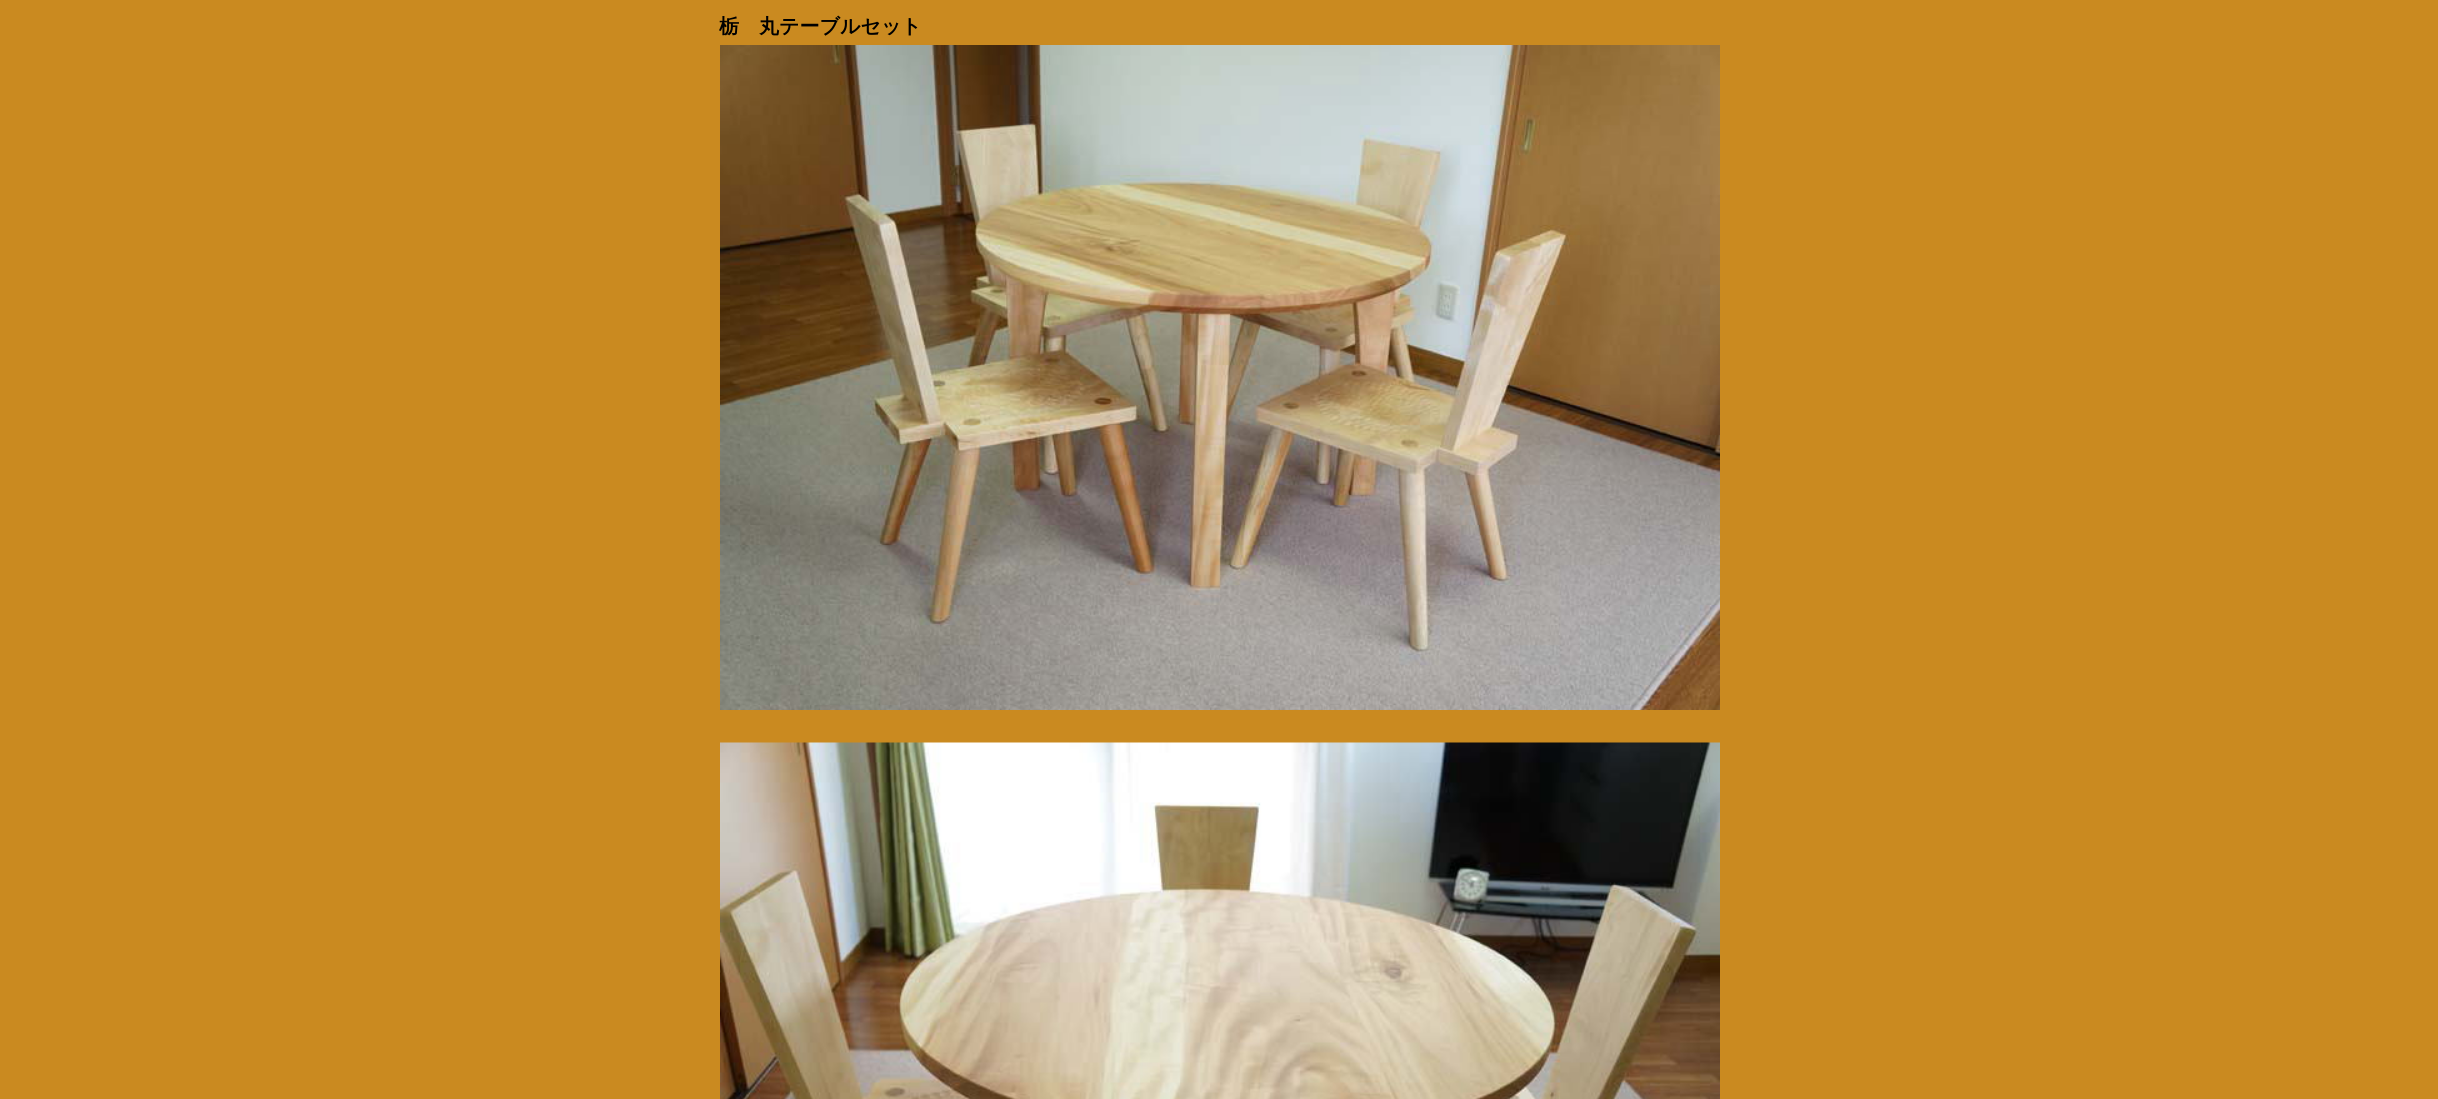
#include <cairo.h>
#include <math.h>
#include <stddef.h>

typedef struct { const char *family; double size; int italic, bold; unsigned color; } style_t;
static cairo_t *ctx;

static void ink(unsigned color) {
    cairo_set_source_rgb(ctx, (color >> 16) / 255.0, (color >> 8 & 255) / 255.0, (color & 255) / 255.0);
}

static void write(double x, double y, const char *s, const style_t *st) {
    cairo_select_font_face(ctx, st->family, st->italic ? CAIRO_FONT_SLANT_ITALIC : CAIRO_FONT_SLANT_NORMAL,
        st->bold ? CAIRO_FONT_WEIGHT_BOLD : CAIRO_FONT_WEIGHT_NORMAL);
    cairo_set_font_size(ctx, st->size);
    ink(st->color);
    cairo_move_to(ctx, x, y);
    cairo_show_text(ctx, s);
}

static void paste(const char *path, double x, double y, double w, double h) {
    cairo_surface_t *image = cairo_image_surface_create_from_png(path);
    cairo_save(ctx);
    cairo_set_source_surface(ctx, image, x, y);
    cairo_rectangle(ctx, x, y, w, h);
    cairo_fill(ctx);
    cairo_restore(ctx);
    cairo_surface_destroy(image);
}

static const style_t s1 = {"WenQuanYi Zen Hei", 20, 0, 1, 0x000000};

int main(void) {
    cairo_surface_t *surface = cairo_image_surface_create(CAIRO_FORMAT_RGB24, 2438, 1099);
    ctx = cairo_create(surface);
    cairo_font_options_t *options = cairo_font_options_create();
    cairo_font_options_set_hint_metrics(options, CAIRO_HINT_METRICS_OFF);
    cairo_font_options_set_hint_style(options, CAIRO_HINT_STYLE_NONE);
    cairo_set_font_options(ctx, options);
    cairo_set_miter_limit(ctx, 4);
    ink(0xca8a20);
    cairo_paint(ctx);
    write(719, 33, "栃　丸テーブルセット", &s1);
    paste("pic1.png", 720, 45, 1000, 665);
    paste("pic2.png", 720, 742, 1000, 357);
    cairo_surface_write_to_png(surface, "screenshot.png");
    cairo_font_options_destroy(options);
    cairo_destroy(ctx);
    cairo_surface_destroy(surface);
    return 0;
}
